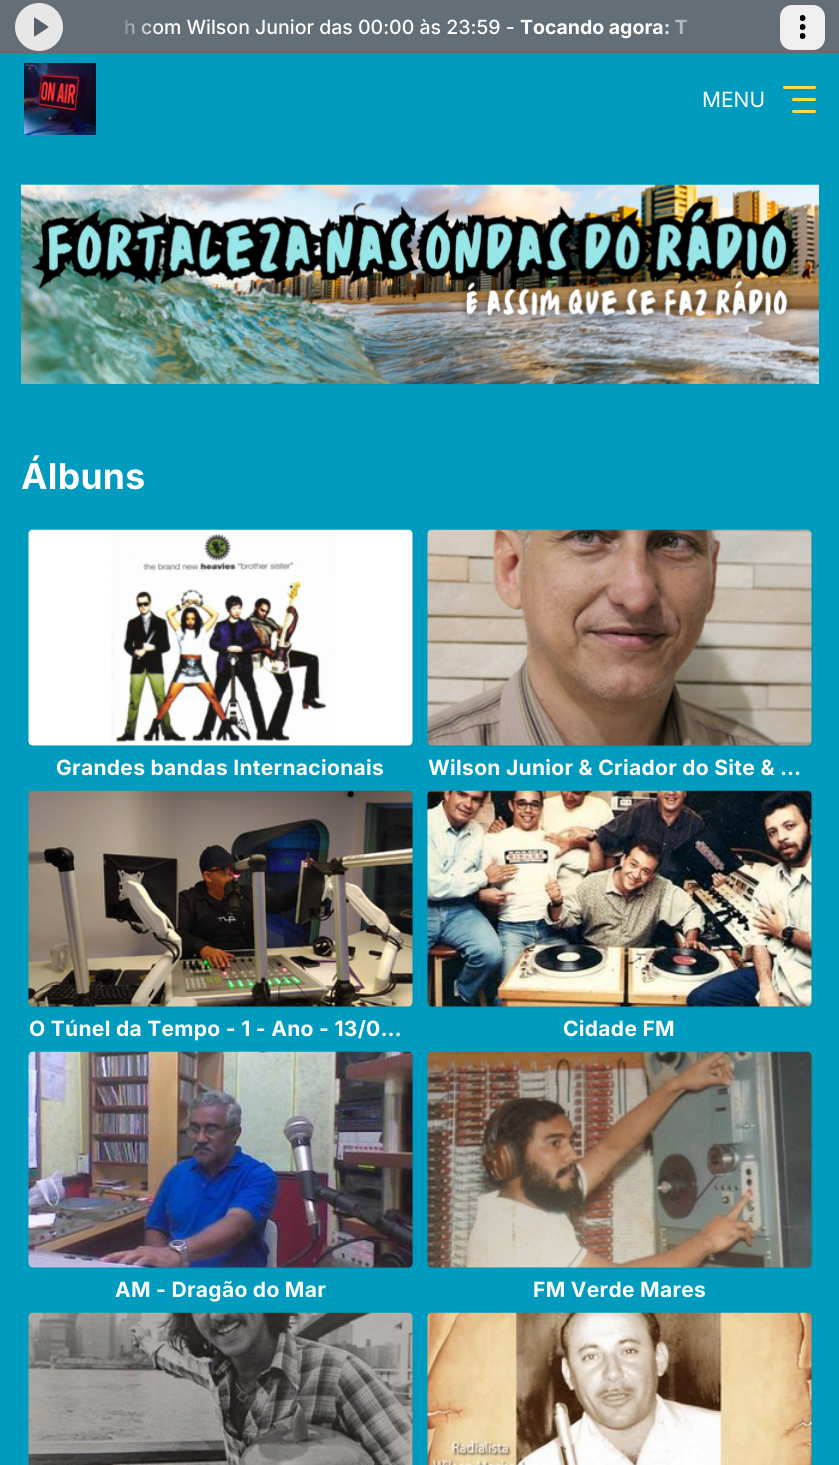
#include <cairo.h>
#include <math.h>
#include <stddef.h>

typedef struct { const char *family; double size; int italic, bold; unsigned color; } style_t;
static cairo_t *ctx;

static void ink(unsigned color) {
    cairo_set_source_rgb(ctx, (color >> 16) / 255.0, (color >> 8 & 255) / 255.0, (color & 255) / 255.0);
}

static void write(double x, double y, const char *s, const style_t *st) {
    cairo_select_font_face(ctx, st->family, st->italic ? CAIRO_FONT_SLANT_ITALIC : CAIRO_FONT_SLANT_NORMAL,
        st->bold ? CAIRO_FONT_WEIGHT_BOLD : CAIRO_FONT_WEIGHT_NORMAL);
    cairo_set_font_size(ctx, st->size);
    ink(st->color);
    cairo_move_to(ctx, x, y);
    cairo_show_text(ctx, s);
}

static void write_spaced(double x, double y, const char *s, double letter, double word) {
    cairo_move_to(ctx, x, y);
    while (*s) {
        char ch[5] = {0};
        int n = 0;
        do ch[n++] = *s++; while ((*s & 0xC0) == 0x80);
        cairo_show_text(ctx, ch);
        cairo_rel_move_to(ctx, letter + word * (*ch == ' '), 0);
    }
}

static void block(double x, double y, double w, double h, unsigned color) {
    ink(color);
    cairo_rectangle(ctx, x, y, w, h);
    cairo_fill(ctx);
}

static void round_path(double x, double y, double w, double h, double r) {
    cairo_new_sub_path(ctx);
    cairo_arc(ctx, x + w - r, y + h - r, r, 0, M_PI / 2);
    cairo_arc(ctx, x + r, y + h - r, r, M_PI / 2, M_PI);
    cairo_arc(ctx, x + r, y + r, r, M_PI, 1.5 * M_PI);
    cairo_arc(ctx, x + w - r, y + r, r, 1.5 * M_PI, 2 * M_PI);
    cairo_close_path(ctx);
}

static void blur_box(double x, double y, double w, double h, double r, double blur, double alpha) {
    cairo_push_group_with_content(ctx, CAIRO_CONTENT_ALPHA);
    cairo_set_operator(ctx, CAIRO_OPERATOR_SOURCE);
    for (int i = 15; i >= -15 && fmin(w, h) + blur * i / 3 > 0; i -= 2) {
        double e = blur * i / 6;
        cairo_set_source_rgba(ctx, 0, 0, 0, alpha * erfc((i - 1) / 8.5) / 2);
        round_path(x - e, y - e, w + 2 * e, h + 2 * e, fmax(0, fmin(r + e + blur * .6, fmin(w, h) / 2 + e)));
        cairo_fill(ctx);
    }
    cairo_pattern_t *soft = cairo_pop_group(ctx);
    cairo_mask(ctx, soft);
    cairo_pattern_destroy(soft);
}

static void paste(const char *path, double x, double y, double w, double h) {
    cairo_surface_t *image = cairo_image_surface_create_from_png(path);
    cairo_save(ctx);
    cairo_set_source_surface(ctx, image, x, y);
    cairo_rectangle(ctx, x, y, w, h);
    cairo_fill(ctx);
    cairo_restore(ctx);
    cairo_surface_destroy(image);
}

static const style_t s1 = {"Inter Medium", 19.5, 0, 0, 0xffffff};
static const style_t s2 = {"Inter", 19.5, 0, 1, 0xffffff};
static const style_t s3 = {"Inter", 21, 0, 0, 0xffffff};

int main(void) {
    cairo_surface_t *surface = cairo_image_surface_create(CAIRO_FORMAT_RGB24, 839, 1465);
    ctx = cairo_create(surface);
    cairo_font_options_t *options = cairo_font_options_create();
    cairo_font_options_set_hint_metrics(options, CAIRO_HINT_METRICS_OFF);
    cairo_font_options_set_hint_style(options, CAIRO_HINT_STYLE_NONE);
    cairo_set_font_options(ctx, options);
    cairo_set_miter_limit(ctx, 4);
    cairo_pattern_t *gradient;
    ink(0x009cbf);
    cairo_paint(ctx);
    block(0, 0, 839, 54, 0x646e77);
    ink(0xe7e7e7);
    cairo_arc(ctx, 39, 27, 24, 0, 2 * M_PI);
    cairo_fill(ctx);
    paste("pic1.png", 34, 17, 15, 20);
    write(124, 34, "h com Wilson Junior das 00:00 às 23:59 -", &s1);
    write(520, 34, "Tocando agora: T", &s2);
    gradient = cairo_pattern_create_linear(99, 27, 161, 27);
    cairo_pattern_add_color_stop_rgba(gradient, 0.2, 0.392, 0.431, 0.467, 1);
    cairo_pattern_add_color_stop_rgba(gradient, 1, 0.392, 0.431, 0.467, 0);
    cairo_set_source(ctx, gradient);
    cairo_pattern_destroy(gradient);
    cairo_rectangle(ctx, 125, 19, 35, 16);
    cairo_fill(ctx);
    gradient = cairo_pattern_create_linear(719, 27, 657, 27);
    cairo_pattern_add_color_stop_rgba(gradient, 0.2, 0.392, 0.431, 0.467, 1);
    cairo_pattern_add_color_stop_rgba(gradient, 1, 0.392, 0.431, 0.467, 0);
    cairo_set_source(ctx, gradient);
    cairo_pattern_destroy(gradient);
    cairo_rectangle(ctx, 658, 19, 29, 16);
    cairo_fill(ctx);
    ink(0xefefef);
    round_path(780, 5, 45, 45, 12);
    cairo_fill(ctx);
    cairo_save(ctx);
    cairo_rectangle(ctx, 800, 15, 6, 24);
    cairo_clip(ctx);
    ink(0x000000);
    cairo_arc(ctx, 802.5, 36, 3, 0, 2 * M_PI);
    cairo_fill(ctx);
    cairo_arc(ctx, 802.5, 27, 3, 0, 2 * M_PI);
    cairo_fill(ctx);
    cairo_arc(ctx, 802.5, 18, 3, 0, 2 * M_PI);
    cairo_fill(ctx);
    cairo_restore(ctx);
    paste("pic2.png", 24, 63, 72, 72);
    write(702, 107, "MENU", &s3);
    ink(0xf5de49);
    round_path(792, 98, 24, 3, 1.5);
    cairo_fill(ctx);
    round_path(783, 86, 33, 3, 1.5);
    cairo_fill(ctx);
    round_path(792, 110, 24, 3, 1.5);
    cairo_fill(ctx);
    paste("pic3.png", 21, 184, 798, 200);
    cairo_select_font_face(ctx, "Inter", CAIRO_FONT_SLANT_NORMAL, CAIRO_FONT_WEIGHT_BOLD);
    cairo_set_font_size(ctx, 35.5);
    ink(0xffffff);
    write_spaced(21, 489, "Álbuns", 0.3, 0);
    ink(0x000000);
    blur_box(30, 531, 384, 216, 5, 1, 0.07);
    paste("pic4.png", 28, 529, 385, 217);
    cairo_set_font_size(ctx, 21);
    ink(0xffffff);
    write_spaced(56, 775, "Grandes bandas Internacionais", 0.3, 0);
    ink(0x000000);
    blur_box(429, 531, 384, 216, 5, 1, 0.07);
    paste("pic5.png", 427, 529, 385, 217);
    ink(0xffffff);
    write_spaced(428, 775, "Wilson Junior & Criador do Site & …", 0.3, 0);
    ink(0x000000);
    blur_box(30, 792, 384, 216, 5, 1, 0.07);
    paste("pic6.png", 28, 790, 385, 217);
    ink(0xffffff);
    write_spaced(29, 1036, "O Túnel da Tempo - 1 - Ano - 13/0…", 0.3, 0);
    ink(0x000000);
    blur_box(429, 792, 384, 216, 5, 1, 0.07);
    paste("pic7.png", 427, 790, 385, 217);
    ink(0xffffff);
    write_spaced(563, 1036, "Cidade FM", 0.3, 0);
    ink(0x000000);
    blur_box(30, 1053, 384, 216, 5, 1, 0.07);
    paste("pic8.png", 28, 1051, 385, 217);
    ink(0xffffff);
    write_spaced(115, 1297, "AM - Dragão do Mar", 0.3, 0);
    ink(0x000000);
    blur_box(429, 1053, 384, 216, 5, 1, 0.07);
    paste("pic9.png", 427, 1051, 385, 217);
    ink(0xffffff);
    write_spaced(533, 1297, "FM Verde Mares", 0.3, 0);
    ink(0x000000);
    blur_box(30, 1314, 384, 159, 5, 1, 0.07);
    paste("pic10.png", 28, 1312, 385, 153);
    blur_box(429, 1314, 384, 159, 5, 1, 0.07);
    paste("pic11.png", 427, 1312, 385, 153);
    cairo_surface_write_to_png(surface, "screenshot.png");
    cairo_font_options_destroy(options);
    cairo_destroy(ctx);
    cairo_surface_destroy(surface);
    return 0;
}
